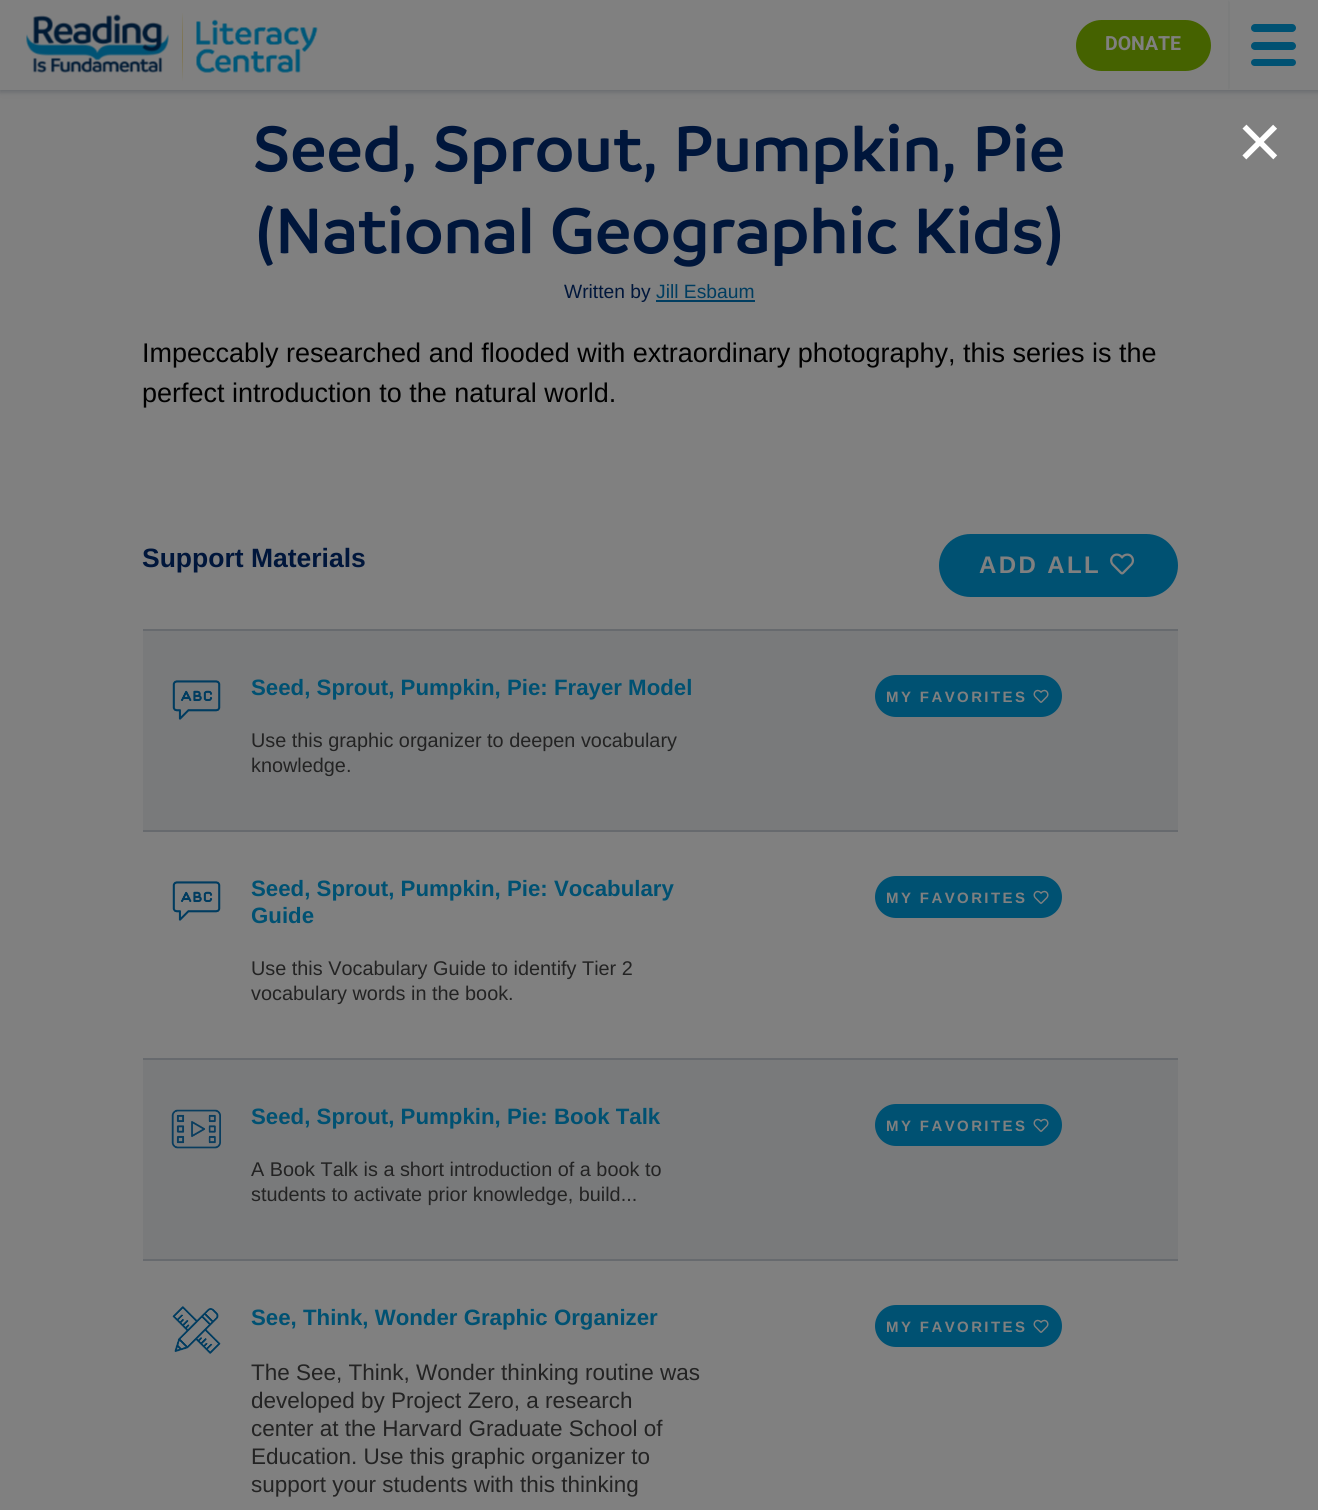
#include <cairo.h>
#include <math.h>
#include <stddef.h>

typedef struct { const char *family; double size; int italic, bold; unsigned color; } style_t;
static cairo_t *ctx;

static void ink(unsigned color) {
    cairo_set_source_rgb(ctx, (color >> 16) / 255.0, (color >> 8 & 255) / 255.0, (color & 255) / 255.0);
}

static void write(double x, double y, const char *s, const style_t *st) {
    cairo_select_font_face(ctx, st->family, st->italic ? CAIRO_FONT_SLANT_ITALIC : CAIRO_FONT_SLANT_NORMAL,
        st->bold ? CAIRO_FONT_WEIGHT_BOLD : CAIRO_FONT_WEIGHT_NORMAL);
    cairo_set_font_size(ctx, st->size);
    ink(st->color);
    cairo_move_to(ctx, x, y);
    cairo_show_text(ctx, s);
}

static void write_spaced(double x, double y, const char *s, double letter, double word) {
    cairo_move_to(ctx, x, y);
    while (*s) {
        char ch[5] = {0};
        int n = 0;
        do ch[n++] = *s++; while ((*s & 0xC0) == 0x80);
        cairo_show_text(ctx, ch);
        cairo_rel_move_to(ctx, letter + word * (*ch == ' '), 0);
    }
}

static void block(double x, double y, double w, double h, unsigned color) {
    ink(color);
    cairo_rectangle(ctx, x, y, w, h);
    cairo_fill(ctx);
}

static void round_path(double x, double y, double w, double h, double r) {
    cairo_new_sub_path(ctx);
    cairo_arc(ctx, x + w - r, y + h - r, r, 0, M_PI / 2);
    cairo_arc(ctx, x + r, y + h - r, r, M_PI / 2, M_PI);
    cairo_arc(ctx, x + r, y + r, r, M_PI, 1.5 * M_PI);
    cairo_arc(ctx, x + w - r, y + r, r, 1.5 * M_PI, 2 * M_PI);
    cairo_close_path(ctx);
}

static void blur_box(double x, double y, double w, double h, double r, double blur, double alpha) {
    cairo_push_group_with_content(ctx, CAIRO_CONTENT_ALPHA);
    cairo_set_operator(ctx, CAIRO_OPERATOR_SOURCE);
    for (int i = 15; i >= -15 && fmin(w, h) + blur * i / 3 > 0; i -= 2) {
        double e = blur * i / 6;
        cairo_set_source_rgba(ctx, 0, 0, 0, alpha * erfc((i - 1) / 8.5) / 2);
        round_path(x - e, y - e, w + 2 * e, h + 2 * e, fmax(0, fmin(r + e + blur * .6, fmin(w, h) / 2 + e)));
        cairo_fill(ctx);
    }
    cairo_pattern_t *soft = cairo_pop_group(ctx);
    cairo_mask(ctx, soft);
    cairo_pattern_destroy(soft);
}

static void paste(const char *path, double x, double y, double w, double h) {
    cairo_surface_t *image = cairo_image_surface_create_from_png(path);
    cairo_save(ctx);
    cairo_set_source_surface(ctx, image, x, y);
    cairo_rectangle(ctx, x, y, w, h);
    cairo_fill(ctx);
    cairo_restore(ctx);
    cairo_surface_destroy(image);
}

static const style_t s1 = {"Roboto", 19.5, 0, 1, 0x808080};
static const style_t s2 = {"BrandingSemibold", 68.75, 0, 0, 0x00163b};
static const style_t s3 = {"Liberation Sans", 19.25, 0, 0, 0x00163b};
static const style_t s4 = {"Liberation Sans", 19.25, 0, 0, 0x003d60};
static const style_t s5 = {"Liberation Sans", 27, 0, 0, 0x000000};
static const style_t s6 = {"Liberation Sans", 26.5, 0, 1, 0x00163b};
static const style_t s7 = {"Liberation Sans", 22.25, 0, 1, 0x005172};
static const style_t s8 = {"Liberation Sans", 19.85, 0, 0, 0x232323};
static const style_t s9 = {"Liberation Sans", 22.5, 0, 0, 0x232323};
static const style_t s10 = {"Liberation Sans", 78, 0, 0, 0xffffff};

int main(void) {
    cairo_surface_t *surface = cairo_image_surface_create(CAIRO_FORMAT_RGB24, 1318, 1510);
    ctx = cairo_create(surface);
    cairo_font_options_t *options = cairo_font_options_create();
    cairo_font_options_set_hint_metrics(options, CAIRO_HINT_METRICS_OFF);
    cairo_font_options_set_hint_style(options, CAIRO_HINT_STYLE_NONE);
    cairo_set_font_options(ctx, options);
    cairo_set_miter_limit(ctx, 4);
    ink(0x808080);
    cairo_paint(ctx);
    ink(0x676a6e);
    blur_box(0, 2, 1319, 90, 0, 2.5, 1);
    block(0, 0, 1318, 90, 0x808080);
    paste("pic1.png", 26, 14, 143, 59);
    paste("pic2.png", 182, 13, 1, 68);
    paste("pic3.png", 196, 19, 122, 54);
    ink(0x456200);
    round_path(1076, 20, 135, 51, 25.5);
    cairo_fill(ctx);
    write(1105, 50, "DONATE", &s1);
    ink(0x7c7d7d);
    cairo_new_path(ctx);
    cairo_move_to(ctx, 1228, 90);
    cairo_line_to(ctx, 1228, 0);
    cairo_line_to(ctx, 1230, 2);
    cairo_line_to(ctx, 1230, 88);
    cairo_close_path(ctx);
    cairo_fill(ctx);
    ink(0x005172);
    round_path(1251, 24, 45, 8, 4);
    cairo_fill(ctx);
    round_path(1251, 42, 45, 8, 4);
    cairo_fill(ctx);
    round_path(1251, 59, 45, 7, 3.5);
    cairo_fill(ctx);
    write(253, 171, "Seed, Sprout, Pumpkin, Pie", &s2);
    write(256, 253, "(National Geographic Kids)", &s2);
    write(564, 298, "Written by", &s3);
    write(656, 298, "Jill Esbaum", &s4);
    block(656, 300, 99, 2, 0x003d60);
    write(142, 362, "Impeccably researched and flooded with extraordinary photography, this series is the", &s5);
    write(142, 402, "perfect introduction to the natural world.", &s5);
    write(142, 567, "Support Materials", &s6);
    block(143, 631, 1035, 199, 0x797a7b);
    block(143, 629, 1035, 2, 0x676a6e);
    paste("pic4.png", 172, 680, 49, 40);
    write(251, 695, "Seed, Sprout, Pumpkin, Pie: Frayer Model", &s7);
    write(251, 747, "Use this graphic organizer to deepen vocabulary", &s8);
    write(251, 772, "knowledge.", &s8);
    ink(0x005172);
    round_path(875, 675, 187, 42, 21);
    cairo_fill(ctx);
    cairo_select_font_face(ctx, "Liberation Sans", CAIRO_FONT_SLANT_NORMAL, CAIRO_FONT_WEIGHT_BOLD);
    cairo_set_font_size(ctx, 15);
    ink(0x808080);
    write_spaced(886, 702, "MY FAVORITES", 2.4, 0);
    paste("pic5.png", 1033, 689, 16, 14);
    block(143, 830, 1035, 2, 0x676a6e);
    paste("pic6.png", 172, 881, 49, 40);
    write(251, 896, "Seed, Sprout, Pumpkin, Pie: Vocabulary", &s7);
    write(251, 923, "Guide", &s7);
    write(251, 975, "Use this Vocabulary Guide to identify Tier 2", &s8);
    write(251, 1000, "vocabulary words in the book.", &s8);
    ink(0x005172);
    round_path(875, 876, 187, 42, 21);
    cairo_fill(ctx);
    cairo_select_font_face(ctx, "Liberation Sans", CAIRO_FONT_SLANT_NORMAL, CAIRO_FONT_WEIGHT_BOLD);
    cairo_set_font_size(ctx, 15);
    ink(0x808080);
    write_spaced(886, 903, "MY FAVORITES", 2.4, 0);
    paste("pic5.png", 1033, 890, 16, 14);
    block(143, 1060, 1035, 199, 0x797a7b);
    block(143, 1058, 1035, 2, 0x676a6e);
    paste("pic7.png", 171, 1109, 50, 40);
    write(251, 1124, "Seed, Sprout, Pumpkin, Pie: Book Talk", &s7);
    write(251, 1176, "A Book Talk is a short introduction of a book to", &s8);
    write(251, 1201, "students to activate prior knowledge, build...", &s8);
    ink(0x005172);
    round_path(875, 1104, 187, 42, 21);
    cairo_fill(ctx);
    cairo_select_font_face(ctx, "Liberation Sans", CAIRO_FONT_SLANT_NORMAL, CAIRO_FONT_WEIGHT_BOLD);
    cairo_set_font_size(ctx, 15);
    ink(0x808080);
    write_spaced(886, 1131, "MY FAVORITES", 2.4, 0);
    paste("pic5.png", 1033, 1118, 16, 14);
    block(143, 1259, 1035, 2, 0x676a6e);
    paste("pic8.png", 172, 1306, 49, 48);
    write(251, 1325, "See, Think, Wonder Graphic Organizer", &s7);
    write(251, 1380, "The See, Think, Wonder thinking routine was", &s9);
    write(251, 1408, "developed by Project Zero, a research", &s9);
    write(251, 1436, "center at the Harvard Graduate School of", &s9);
    write(251, 1464, "Education. Use this graphic organizer to", &s9);
    write(251, 1492, "support your students with this thinking", &s9);
    ink(0x005172);
    round_path(875, 1305, 187, 42, 21);
    cairo_fill(ctx);
    cairo_select_font_face(ctx, "Liberation Sans", CAIRO_FONT_SLANT_NORMAL, CAIRO_FONT_WEIGHT_BOLD);
    cairo_set_font_size(ctx, 15);
    ink(0x808080);
    write_spaced(886, 1332, "MY FAVORITES", 2.4, 0);
    paste("pic5.png", 1033, 1319, 16, 14);
    ink(0x005172);
    round_path(939, 534, 239, 63, 31.5);
    cairo_fill(ctx);
    cairo_set_font_size(ctx, 24);
    ink(0x808080);
    write_spaced(979, 573, "ADD ALL", 2.4, 0);
    paste("pic9.png", 1110, 553, 25, 22);
    write(1237, 168, "×", &s10);
    cairo_surface_write_to_png(surface, "screenshot.png");
    cairo_font_options_destroy(options);
    cairo_destroy(ctx);
    cairo_surface_destroy(surface);
    return 0;
}
